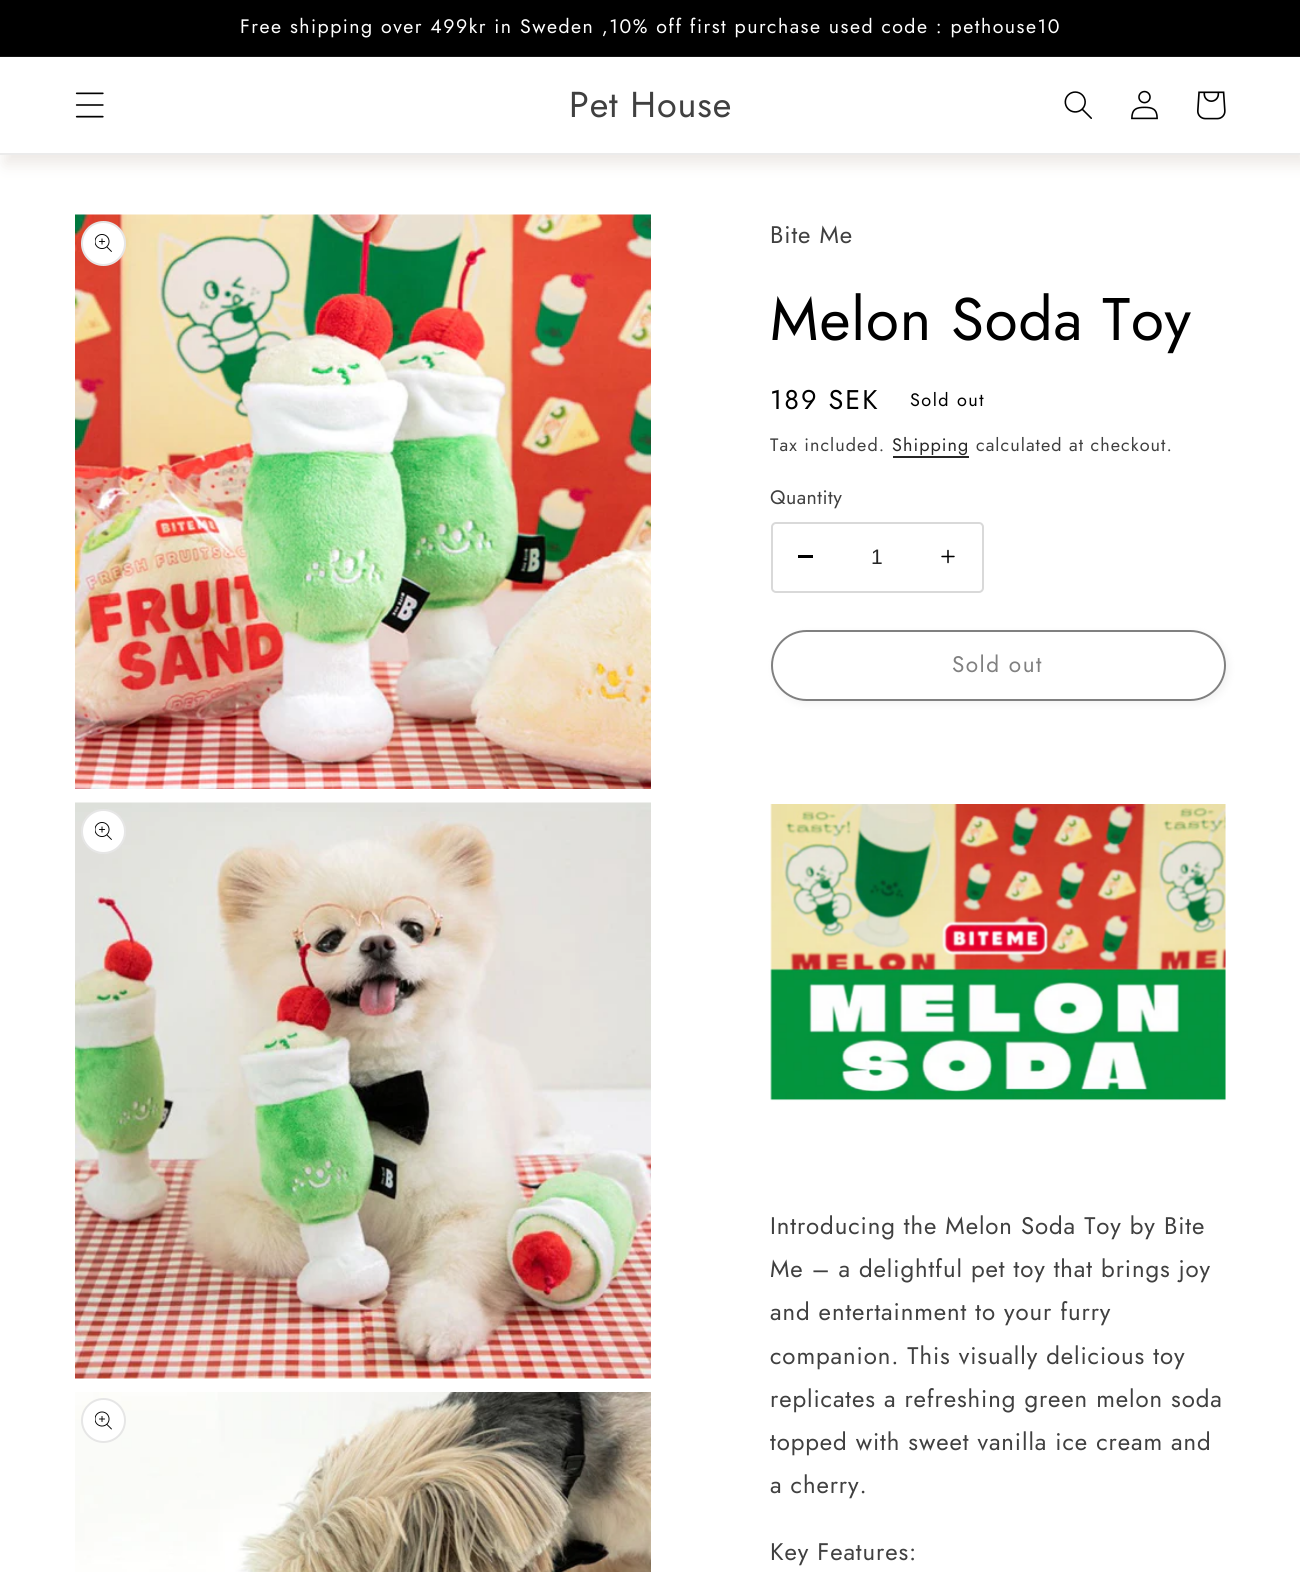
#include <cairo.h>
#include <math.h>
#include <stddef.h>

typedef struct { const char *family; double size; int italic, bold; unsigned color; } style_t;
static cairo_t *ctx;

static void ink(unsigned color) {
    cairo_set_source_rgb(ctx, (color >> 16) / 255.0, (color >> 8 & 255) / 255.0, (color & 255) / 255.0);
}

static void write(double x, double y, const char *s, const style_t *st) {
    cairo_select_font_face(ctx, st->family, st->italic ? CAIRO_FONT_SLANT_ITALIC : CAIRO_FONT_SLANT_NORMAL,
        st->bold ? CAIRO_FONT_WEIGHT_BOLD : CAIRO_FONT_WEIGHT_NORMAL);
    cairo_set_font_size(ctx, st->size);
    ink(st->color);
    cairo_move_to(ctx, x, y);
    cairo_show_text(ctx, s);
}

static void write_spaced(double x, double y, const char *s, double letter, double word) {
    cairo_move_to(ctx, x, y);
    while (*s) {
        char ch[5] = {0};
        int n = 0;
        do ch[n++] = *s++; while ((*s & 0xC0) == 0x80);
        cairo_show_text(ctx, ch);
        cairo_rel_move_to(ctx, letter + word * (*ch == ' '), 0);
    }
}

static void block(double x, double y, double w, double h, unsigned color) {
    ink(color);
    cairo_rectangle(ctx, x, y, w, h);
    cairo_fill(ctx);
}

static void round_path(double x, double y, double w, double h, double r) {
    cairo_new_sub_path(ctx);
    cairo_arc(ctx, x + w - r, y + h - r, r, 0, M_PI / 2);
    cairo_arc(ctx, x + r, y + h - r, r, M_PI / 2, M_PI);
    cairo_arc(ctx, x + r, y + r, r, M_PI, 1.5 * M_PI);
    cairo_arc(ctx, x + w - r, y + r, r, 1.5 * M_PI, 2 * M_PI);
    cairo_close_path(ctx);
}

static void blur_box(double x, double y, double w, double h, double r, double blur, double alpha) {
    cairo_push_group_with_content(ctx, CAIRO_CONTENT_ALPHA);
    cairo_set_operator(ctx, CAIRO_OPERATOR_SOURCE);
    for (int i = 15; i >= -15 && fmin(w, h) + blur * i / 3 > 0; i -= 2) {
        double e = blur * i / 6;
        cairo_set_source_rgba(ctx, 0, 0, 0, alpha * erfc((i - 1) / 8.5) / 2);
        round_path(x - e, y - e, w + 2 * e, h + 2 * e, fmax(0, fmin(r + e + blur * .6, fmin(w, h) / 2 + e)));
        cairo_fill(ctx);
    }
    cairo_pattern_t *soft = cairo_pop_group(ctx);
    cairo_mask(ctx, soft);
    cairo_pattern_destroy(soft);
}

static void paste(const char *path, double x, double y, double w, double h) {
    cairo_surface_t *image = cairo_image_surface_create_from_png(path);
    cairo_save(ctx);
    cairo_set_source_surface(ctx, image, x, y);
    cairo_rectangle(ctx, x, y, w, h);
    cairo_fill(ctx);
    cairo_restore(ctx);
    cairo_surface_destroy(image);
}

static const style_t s1 = {"Liberation Sans", 21, 0, 0, 0x262626};

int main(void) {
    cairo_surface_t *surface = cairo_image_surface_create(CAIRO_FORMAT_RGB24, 1300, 1572);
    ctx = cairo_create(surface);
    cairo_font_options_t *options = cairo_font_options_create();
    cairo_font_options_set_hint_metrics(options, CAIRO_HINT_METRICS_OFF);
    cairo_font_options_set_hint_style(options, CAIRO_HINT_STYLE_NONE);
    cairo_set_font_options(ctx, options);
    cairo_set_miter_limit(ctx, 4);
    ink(0xffffff);
    cairo_paint(ctx);
    ink(0xede9e5);
    blur_box(5, 66, 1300, 98, 0, 7.5, 1);
    block(0, 0, 1300, 57, 0x000000);
    cairo_set_source_rgba(ctx, 1, 1, 1, 0.08);
    cairo_rectangle(ctx, 0, 56, 1300, 1);
    cairo_fill(ctx);
    cairo_select_font_face(ctx, "Jost", CAIRO_FONT_SLANT_NORMAL, CAIRO_FONT_WEIGHT_NORMAL);
    cairo_set_font_size(ctx, 19.5);
    ink(0xffffff);
    write_spaced(240, 33, "Free shipping over 499kr in Sweden ,10% off first purchase used code : pethouse10", 1.5, 0);
    block(0, 57, 1300, 96, 0xffffff);
    block(0, 153, 1300, 2, 0xebebeb);
    paste("pic1.png", 75, 92, 29, 26);
    cairo_set_font_size(ctx, 36);
    ink(0x404040);
    write_spaced(569, 117, "Pet House", 0.9, 0);
    paste("pic2.png", 1064, 91, 28, 28);
    paste("pic3.png", 1131, 90, 27, 30);
    paste("pic4.png", 1197, 91, 29, 29);
    paste("pic5.png", 75, 214, 576, 575);
    ink(0xffffff);
    cairo_arc(ctx, 103.5, 243.5, 22.5, 0, 2 * M_PI);
    cairo_fill(ctx);
    cairo_arc(ctx, 103.5, 243.5, 21.5, 0, 2 * M_PI);
    cairo_set_source_rgba(ctx, 0, 0, 0, 0.1);
    cairo_stroke(ctx);
    paste("pic6.png", 95, 234, 17, 18);
    paste("pic7.png", 75, 802, 576, 577);
    ink(0xffffff);
    cairo_arc(ctx, 103.5, 831.5, 22.5, 0, 2 * M_PI);
    cairo_fill(ctx);
    cairo_arc(ctx, 103.5, 831.5, 21.5, 0, 2 * M_PI);
    cairo_set_source_rgba(ctx, 0, 0, 0, 0.1);
    cairo_stroke(ctx);
    paste("pic6.png", 95, 822, 17, 18);
    paste("pic8.png", 75, 1392, 576, 180);
    ink(0xffffff);
    cairo_arc(ctx, 103.5, 1420.5, 22.5, 0, 2 * M_PI);
    cairo_fill(ctx);
    cairo_arc(ctx, 103.5, 1420.5, 21.5, 0, 2 * M_PI);
    cairo_set_source_rgba(ctx, 0, 0, 0, 0.1);
    cairo_stroke(ctx);
    paste("pic9.png", 95, 1411, 17, 19);
    cairo_set_font_size(ctx, 24);
    ink(0x404040);
    write_spaced(770, 243, "Bite Me", 0.9, 0);
    cairo_set_font_size(ctx, 60);
    ink(0x000000);
    write_spaced(770, 340, "Melon Soda Toy", 0.9, 0);
    cairo_set_font_size(ctx, 27);
    write_spaced(770, 409, "189 SEK", 2, 0);
    cairo_set_font_size(ctx, 18);
    write_spaced(910, 406, "Sold out", 1.5, 0);
    ink(0x404040);
    write_spaced(770, 451, "Tax included.", 1.05, 0);
    ink(0x262626);
    write_spaced(892, 451, "Shipping", 1.05, 0);
    block(893, 456, 76, 2, 0x262626);
    ink(0x404040);
    write_spaced(976, 451, "calculated at checkout.", 1.05, 0);
    cairo_set_font_size(ctx, 19.5);
    write_spaced(770, 504, "Quantity", 0.5, 0);
    block(798, 555, 15, 3, 0x000000);
    paste("pic10.png", 941, 549, 14, 15);
    round_path(772, 523, 211, 69, 4);
    cairo_set_source_rgba(ctx, 0, 0, 0, 0.15);
    cairo_stroke(ctx);
    write(871, 564, "1", &s1);
    cairo_save(ctx);
    cairo_set_fill_rule(ctx, CAIRO_FILL_RULE_EVEN_ODD);
    cairo_new_path(ctx);
    cairo_move_to(ctx, 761, 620);
    cairo_line_to(ctx, 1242, 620);
    cairo_line_to(ctx, 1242, 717);
    cairo_line_to(ctx, 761, 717);
    cairo_close_path(ctx);
    cairo_move_to(ctx, 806.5, 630);
    cairo_line_to(ctx, 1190.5, 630);
    cairo_curve_to(ctx, 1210, 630, 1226, 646, 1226, 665.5);
    cairo_curve_to(ctx, 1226, 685, 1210, 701, 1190.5, 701);
    cairo_line_to(ctx, 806.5, 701);
    cairo_curve_to(ctx, 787, 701, 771, 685, 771, 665.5);
    cairo_curve_to(ctx, 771, 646, 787, 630, 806.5, 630);
    cairo_close_path(ctx);
    cairo_clip(ctx);
    ink(0x808080);
    blur_box(774, 633, 455, 71, 35.5, 4, 0.1);
    cairo_restore(ctx);
    round_path(772, 631, 453, 69, 34.5);
    ink(0xffffff);
    cairo_stroke(ctx);
    round_path(772, 631, 453, 69, 34.5);
    ink(0x808080);
    cairo_stroke(ctx);
    cairo_select_font_face(ctx, "Jost", CAIRO_FONT_SLANT_NORMAL, CAIRO_FONT_WEIGHT_NORMAL);
    cairo_set_font_size(ctx, 22.5);
    write_spaced(952, 672, "Sold out", 1.5, 0);
    paste("pic11.png", 770, 804, 456, 297);
    cairo_set_font_size(ctx, 24);
    ink(0x404040);
    write_spaced(770, 1234, "Introducing the Melon Soda Toy by Bite", 0.9, 0);
    write_spaced(770, 1277, "Me – a delightful pet toy that brings joy", 0.9, 0);
    write_spaced(770, 1320, "and entertainment to your furry", 0.9, 0);
    write_spaced(770, 1364, "companion. This visually delicious toy", 0.9, 0);
    write_spaced(770, 1407, "replicates a refreshing green melon soda", 0.9, 0);
    write_spaced(770, 1450, "topped with sweet vanilla ice cream and", 0.9, 0);
    write_spaced(770, 1493, "a cherry.", 0.9, 0);
    write_spaced(770, 1560, "Key Features:", 0.9, 0);
    cairo_surface_write_to_png(surface, "screenshot.png");
    cairo_font_options_destroy(options);
    cairo_destroy(ctx);
    cairo_surface_destroy(surface);
    return 0;
}
